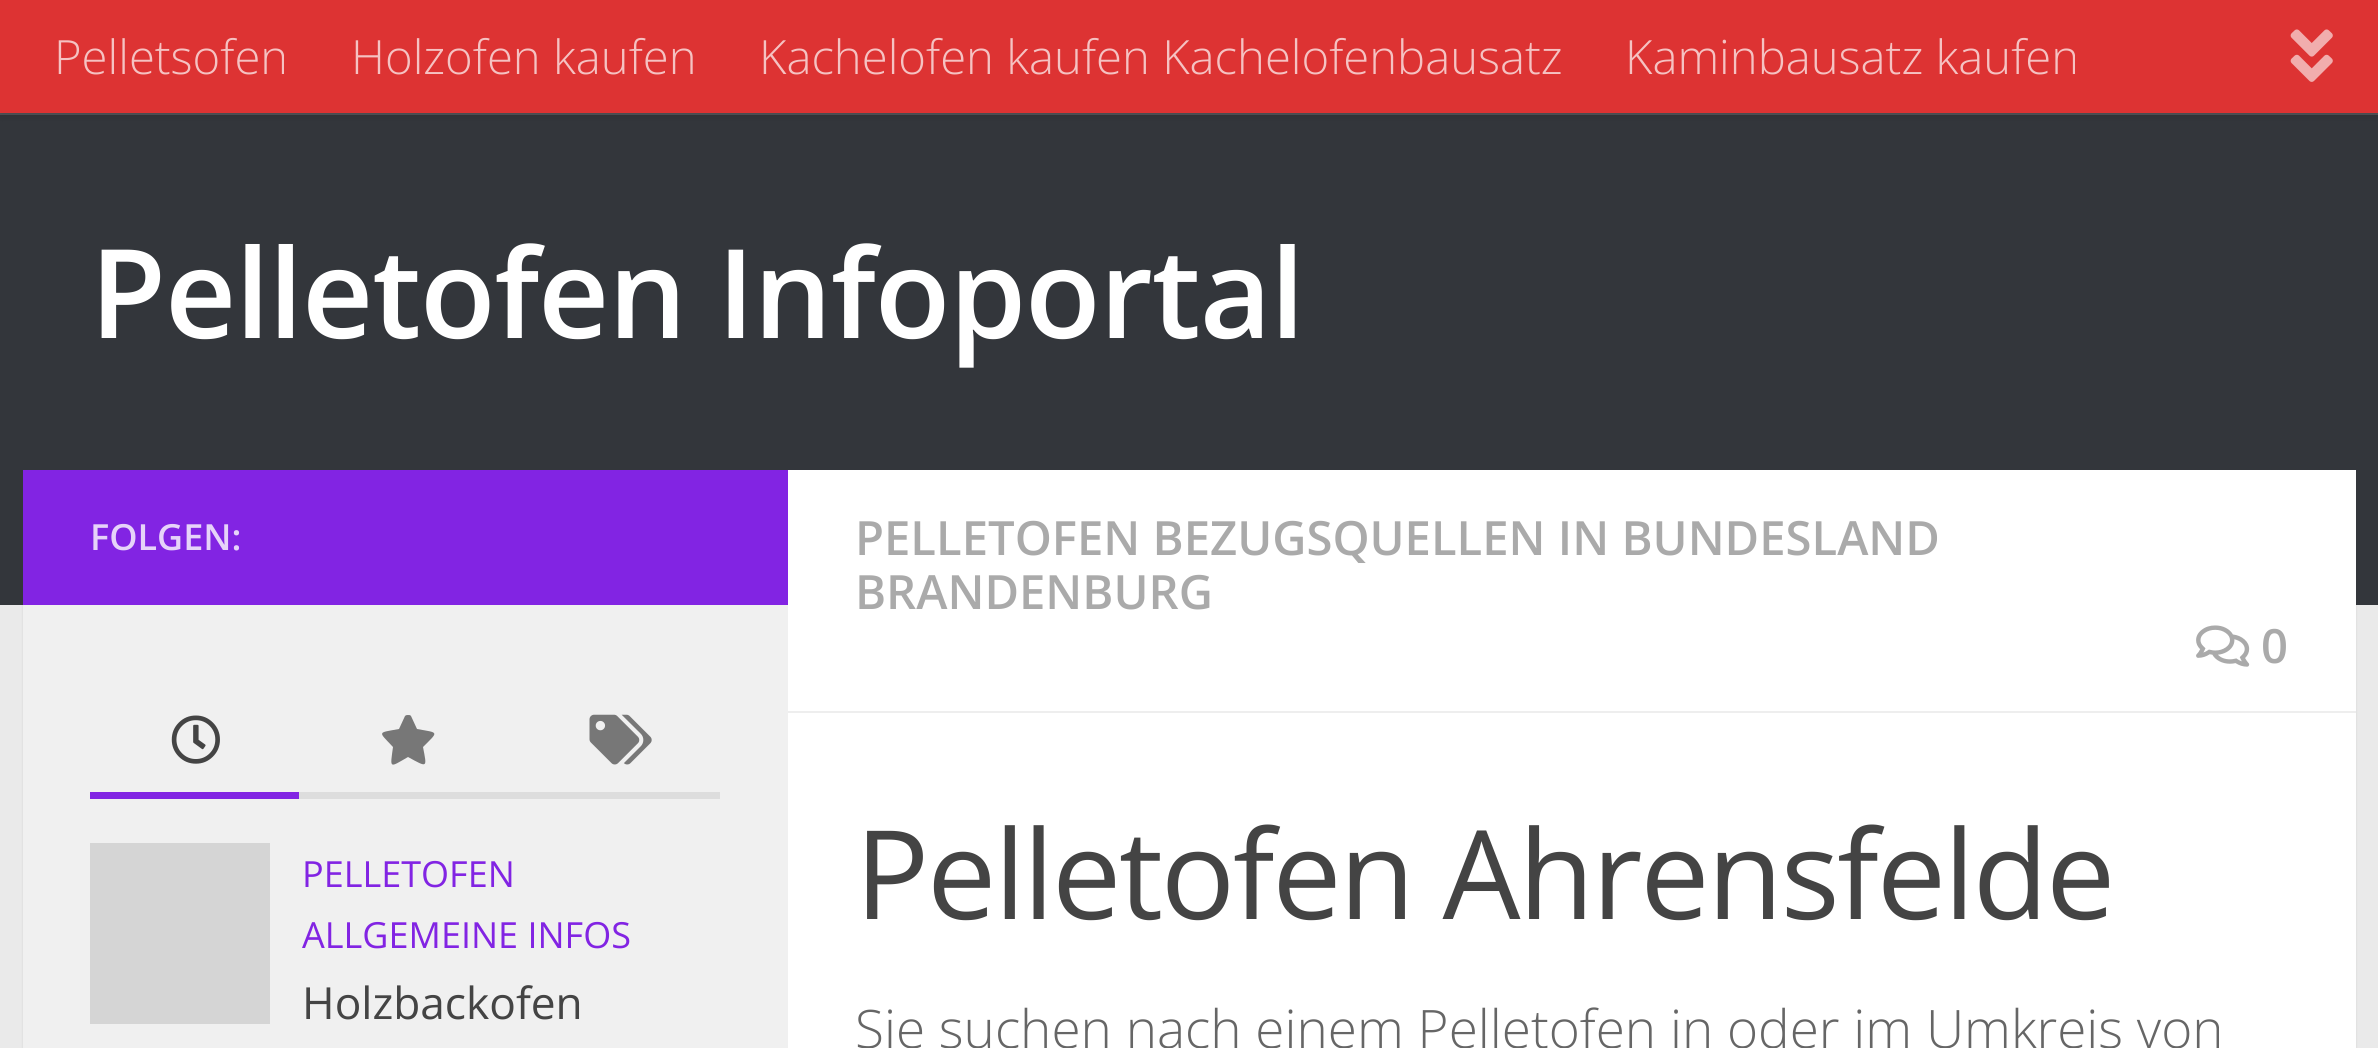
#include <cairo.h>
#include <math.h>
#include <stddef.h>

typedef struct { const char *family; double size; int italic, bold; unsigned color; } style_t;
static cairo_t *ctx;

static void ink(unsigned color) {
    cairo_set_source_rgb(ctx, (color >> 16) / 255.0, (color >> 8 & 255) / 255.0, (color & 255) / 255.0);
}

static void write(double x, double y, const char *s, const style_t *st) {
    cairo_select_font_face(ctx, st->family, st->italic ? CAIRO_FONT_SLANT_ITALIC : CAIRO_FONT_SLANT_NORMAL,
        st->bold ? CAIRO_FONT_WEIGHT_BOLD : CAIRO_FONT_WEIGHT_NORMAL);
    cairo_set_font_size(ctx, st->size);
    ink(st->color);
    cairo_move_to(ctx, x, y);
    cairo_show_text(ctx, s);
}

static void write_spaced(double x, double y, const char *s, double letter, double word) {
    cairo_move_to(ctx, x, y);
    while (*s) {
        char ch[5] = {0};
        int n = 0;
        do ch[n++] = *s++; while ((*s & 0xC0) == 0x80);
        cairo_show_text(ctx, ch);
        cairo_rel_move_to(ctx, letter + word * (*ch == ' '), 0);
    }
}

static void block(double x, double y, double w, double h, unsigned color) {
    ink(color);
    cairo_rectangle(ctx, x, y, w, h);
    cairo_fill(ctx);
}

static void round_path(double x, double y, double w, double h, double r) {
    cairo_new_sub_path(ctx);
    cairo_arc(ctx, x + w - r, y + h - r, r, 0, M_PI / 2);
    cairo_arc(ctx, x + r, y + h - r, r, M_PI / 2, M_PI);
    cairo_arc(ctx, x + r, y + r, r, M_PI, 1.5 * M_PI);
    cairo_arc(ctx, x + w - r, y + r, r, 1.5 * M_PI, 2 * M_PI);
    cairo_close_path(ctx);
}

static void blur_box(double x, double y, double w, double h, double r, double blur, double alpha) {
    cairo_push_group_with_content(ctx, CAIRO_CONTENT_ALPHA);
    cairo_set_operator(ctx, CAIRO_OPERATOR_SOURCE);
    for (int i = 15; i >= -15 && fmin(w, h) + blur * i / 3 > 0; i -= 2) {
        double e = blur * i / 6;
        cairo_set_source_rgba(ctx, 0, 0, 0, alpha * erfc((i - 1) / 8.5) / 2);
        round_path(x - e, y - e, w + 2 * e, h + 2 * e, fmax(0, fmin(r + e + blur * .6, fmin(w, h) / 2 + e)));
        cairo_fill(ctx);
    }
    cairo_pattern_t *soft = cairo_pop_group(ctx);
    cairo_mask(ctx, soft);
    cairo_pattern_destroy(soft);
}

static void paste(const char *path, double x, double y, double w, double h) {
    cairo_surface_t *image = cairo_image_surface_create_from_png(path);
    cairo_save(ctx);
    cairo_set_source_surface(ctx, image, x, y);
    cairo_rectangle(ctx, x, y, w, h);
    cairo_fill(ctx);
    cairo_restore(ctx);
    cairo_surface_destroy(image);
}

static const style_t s1 = {"Open Sans Light", 47.2, 0, 0, 0xf5c2c2};
static const style_t s2 = {"Open Sans SemiBold", 36, 0, 0, 0xe6d3f9};
static const style_t s3 = {"Open Sans", 36, 0, 0, 0x8224e3};
static const style_t s4 = {"Open Sans", 44.25, 0, 0, 0x444444};
static const style_t s5 = {"Open Sans SemiBold", 47.2, 0, 0, 0xaaaaaa};
static const style_t s6 = {"Open Sans Light", 53.05, 0, 0, 0x666666};

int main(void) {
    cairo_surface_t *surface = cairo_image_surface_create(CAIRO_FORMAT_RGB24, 2378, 1048);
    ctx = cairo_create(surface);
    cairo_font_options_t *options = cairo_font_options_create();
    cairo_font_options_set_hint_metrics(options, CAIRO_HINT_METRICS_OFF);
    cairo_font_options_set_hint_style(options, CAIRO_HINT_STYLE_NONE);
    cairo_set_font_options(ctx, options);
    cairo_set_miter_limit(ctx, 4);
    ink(0xeaeaea);
    cairo_paint(ctx);
    ink(0x000000);
    blur_box(23, 473, 2333, 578, 0, 1, 0.1);
    block(0, 115, 2378, 490, 0x33363b);
    block(0, 113, 2378, 2, 0x525458);
    ink(0x000000);
    blur_box(0, 0, 2378, 113, 0, 5.5, 0.2);
    block(0, 0, 2378, 113, 0xdd3333);
    write(54, 74, "Pelletsofen", &s1);
    write(351, 74, "Holzofen kaufen", &s1);
    write(759, 74, "Kachelofen kaufen Kachelofenbausatz", &s1);
    write(1625, 74, "Kaminbausatz kaufen", &s1);
    paste("pic1.png", 2290, 29, 43, 53);
    cairo_select_font_face(ctx, "Open Sans SemiBold", CAIRO_FONT_SLANT_NORMAL, CAIRO_FONT_WEIGHT_NORMAL);
    cairo_set_font_size(ctx, 123.75);
    ink(0xffffff);
    write_spaced(90, 338, "Pelletofen Infoportal", -1.1, 0);
    block(788, 470, 1568, 578, 0xffffff);
    block(23, 470, 765, 135, 0x8224e3);
    write(90, 550, "FOLGEN:", &s2);
    block(23, 605, 765, 443, 0xf0f0f0);
    block(299, 792, 421, 7, 0xdddddd);
    block(90, 792, 209, 7, 0x8224e3);
    paste("pic2.png", 171, 715, 49, 49);
    ink(0x777777);
    cairo_new_path(ctx);
    cairo_move_to(ctx, 405, 716);
    cairo_curve_to(ctx, 406, 715, 407, 715, 408, 715);
    cairo_curve_to(ctx, 410, 715, 410, 715, 411, 716);
    cairo_line_to(ctx, 417, 729);
    cairo_curve_to(ctx, 439, 733, 439, 731, 423, 747);
    cairo_curve_to(ctx, 427, 768, 428, 768, 408, 757);
    cairo_curve_to(ctx, 389, 768, 390, 769, 393, 747);
    cairo_curve_to(ctx, 378, 731, 377, 733, 399, 729);
    cairo_close_path(ctx);
    cairo_fill(ctx);
    paste("pic3.png", 589, 714, 63, 51);
    block(90, 843, 180, 181, 0xd5d5d5);
    write(302, 887, "PELLETOFEN", &s3);
    write(302, 948, "ALLGEMEINE INFOS", &s3);
    write(302, 1019, "Holzbackofen", &s4);
    block(788, 711, 1568, 2, 0xeeeeee);
    write(855, 555, "PELLETOFEN BEZUGSQUELLEN IN BUNDESLAND", &s5);
    write(855, 609, "BRANDENBURG", &s5);
    paste("pic4.png", 2196, 625, 54, 42);
    write(2261, 663, "0", &s5);
    cairo_select_font_face(ctx, "Open Sans", CAIRO_FONT_SLANT_NORMAL, CAIRO_FONT_WEIGHT_NORMAL);
    cairo_set_font_size(ctx, 123.5);
    ink(0x444444);
    write_spaced(855, 919, "Pelletofen Ahrensfelde", -2.25, 0);
    write(855, 1048, "Sie suchen nach einem Pelletofen in oder im Umkreis von", &s6);
    cairo_surface_write_to_png(surface, "screenshot.png");
    cairo_font_options_destroy(options);
    cairo_destroy(ctx);
    cairo_surface_destroy(surface);
    return 0;
}
